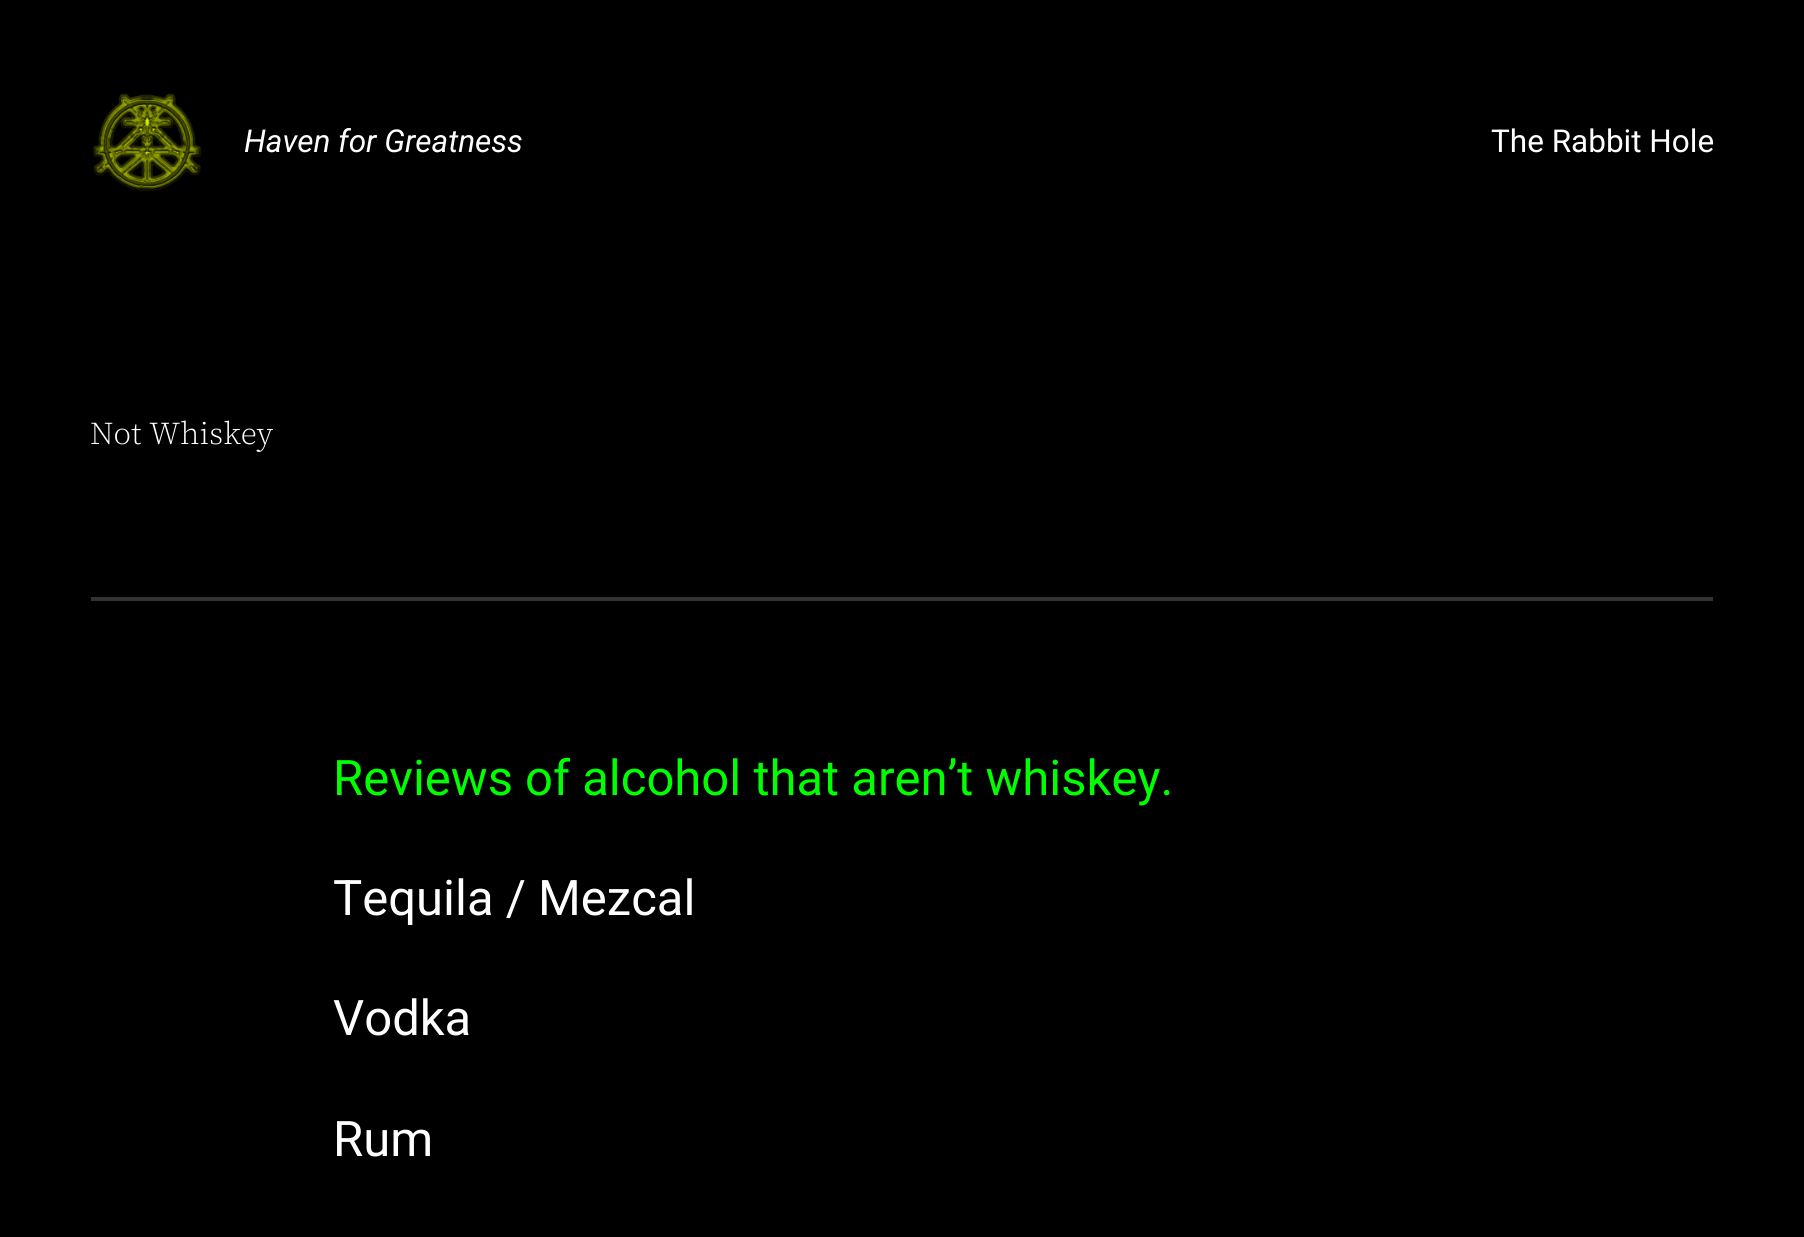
#include <cairo.h>
#include <math.h>
#include <stddef.h>

typedef struct { const char *family; double size; int italic, bold; unsigned color; } style_t;
static cairo_t *ctx;

static void ink(unsigned color) {
    cairo_set_source_rgb(ctx, (color >> 16) / 255.0, (color >> 8 & 255) / 255.0, (color & 255) / 255.0);
}

static void write(double x, double y, const char *s, const style_t *st) {
    cairo_select_font_face(ctx, st->family, st->italic ? CAIRO_FONT_SLANT_ITALIC : CAIRO_FONT_SLANT_NORMAL,
        st->bold ? CAIRO_FONT_WEIGHT_BOLD : CAIRO_FONT_WEIGHT_NORMAL);
    cairo_set_font_size(ctx, st->size);
    ink(st->color);
    cairo_move_to(ctx, x, y);
    cairo_show_text(ctx, s);
}

static void block(double x, double y, double w, double h, unsigned color) {
    ink(color);
    cairo_rectangle(ctx, x, y, w, h);
    cairo_fill(ctx);
}

static void paste(const char *path, double x, double y, double w, double h) {
    cairo_surface_t *image = cairo_image_surface_create_from_png(path);
    cairo_save(ctx);
    cairo_set_source_surface(ctx, image, x, y);
    cairo_rectangle(ctx, x, y, w, h);
    cairo_fill(ctx);
    cairo_restore(ctx);
    cairo_surface_destroy(image);
}

static const style_t s1 = {"Roboto", 31.5, 1, 0, 0xffffff};
static const style_t s2 = {"Roboto", 31.5, 0, 0, 0xffffff};
static const style_t s3 = {"Source Serif 4 Light", 31.5, 0, 0, 0xffffff};
static const style_t s4 = {"Roboto", 49, 0, 0, 0x00ff00};
static const style_t s5 = {"Roboto", 49, 0, 0, 0xffffff};

int main(void) {
    cairo_surface_t *surface = cairo_image_surface_create(CAIRO_FORMAT_RGB24, 1804, 1237);
    ctx = cairo_create(surface);
    cairo_font_options_t *options = cairo_font_options_create();
    cairo_font_options_set_hint_metrics(options, CAIRO_HINT_METRICS_OFF);
    cairo_font_options_set_hint_style(options, CAIRO_HINT_STYLE_NONE);
    cairo_set_font_options(ctx, options);
    cairo_set_miter_limit(ctx, 4);
    ink(0x000000);
    cairo_paint(ctx);
    paste("pic1.png", 92, 93, 110, 98);
    write(244, 152, "Haven for Greatness", &s1);
    write(1491, 152, "The Rabbit Hole", &s2);
    write(90, 444, "Not Whiskey", &s3);
    block(91, 597, 1622, 4, 0x333333);
    write(333, 795, "Reviews of alcohol that aren’t whiskey.", &s4);
    write(333, 915, "Tequila / Mezcal", &s5);
    write(333, 1035, "Vodka", &s5);
    write(333, 1156, "Rum", &s5);
    cairo_surface_write_to_png(surface, "screenshot.png");
    cairo_font_options_destroy(options);
    cairo_destroy(ctx);
    cairo_surface_destroy(surface);
    return 0;
}
